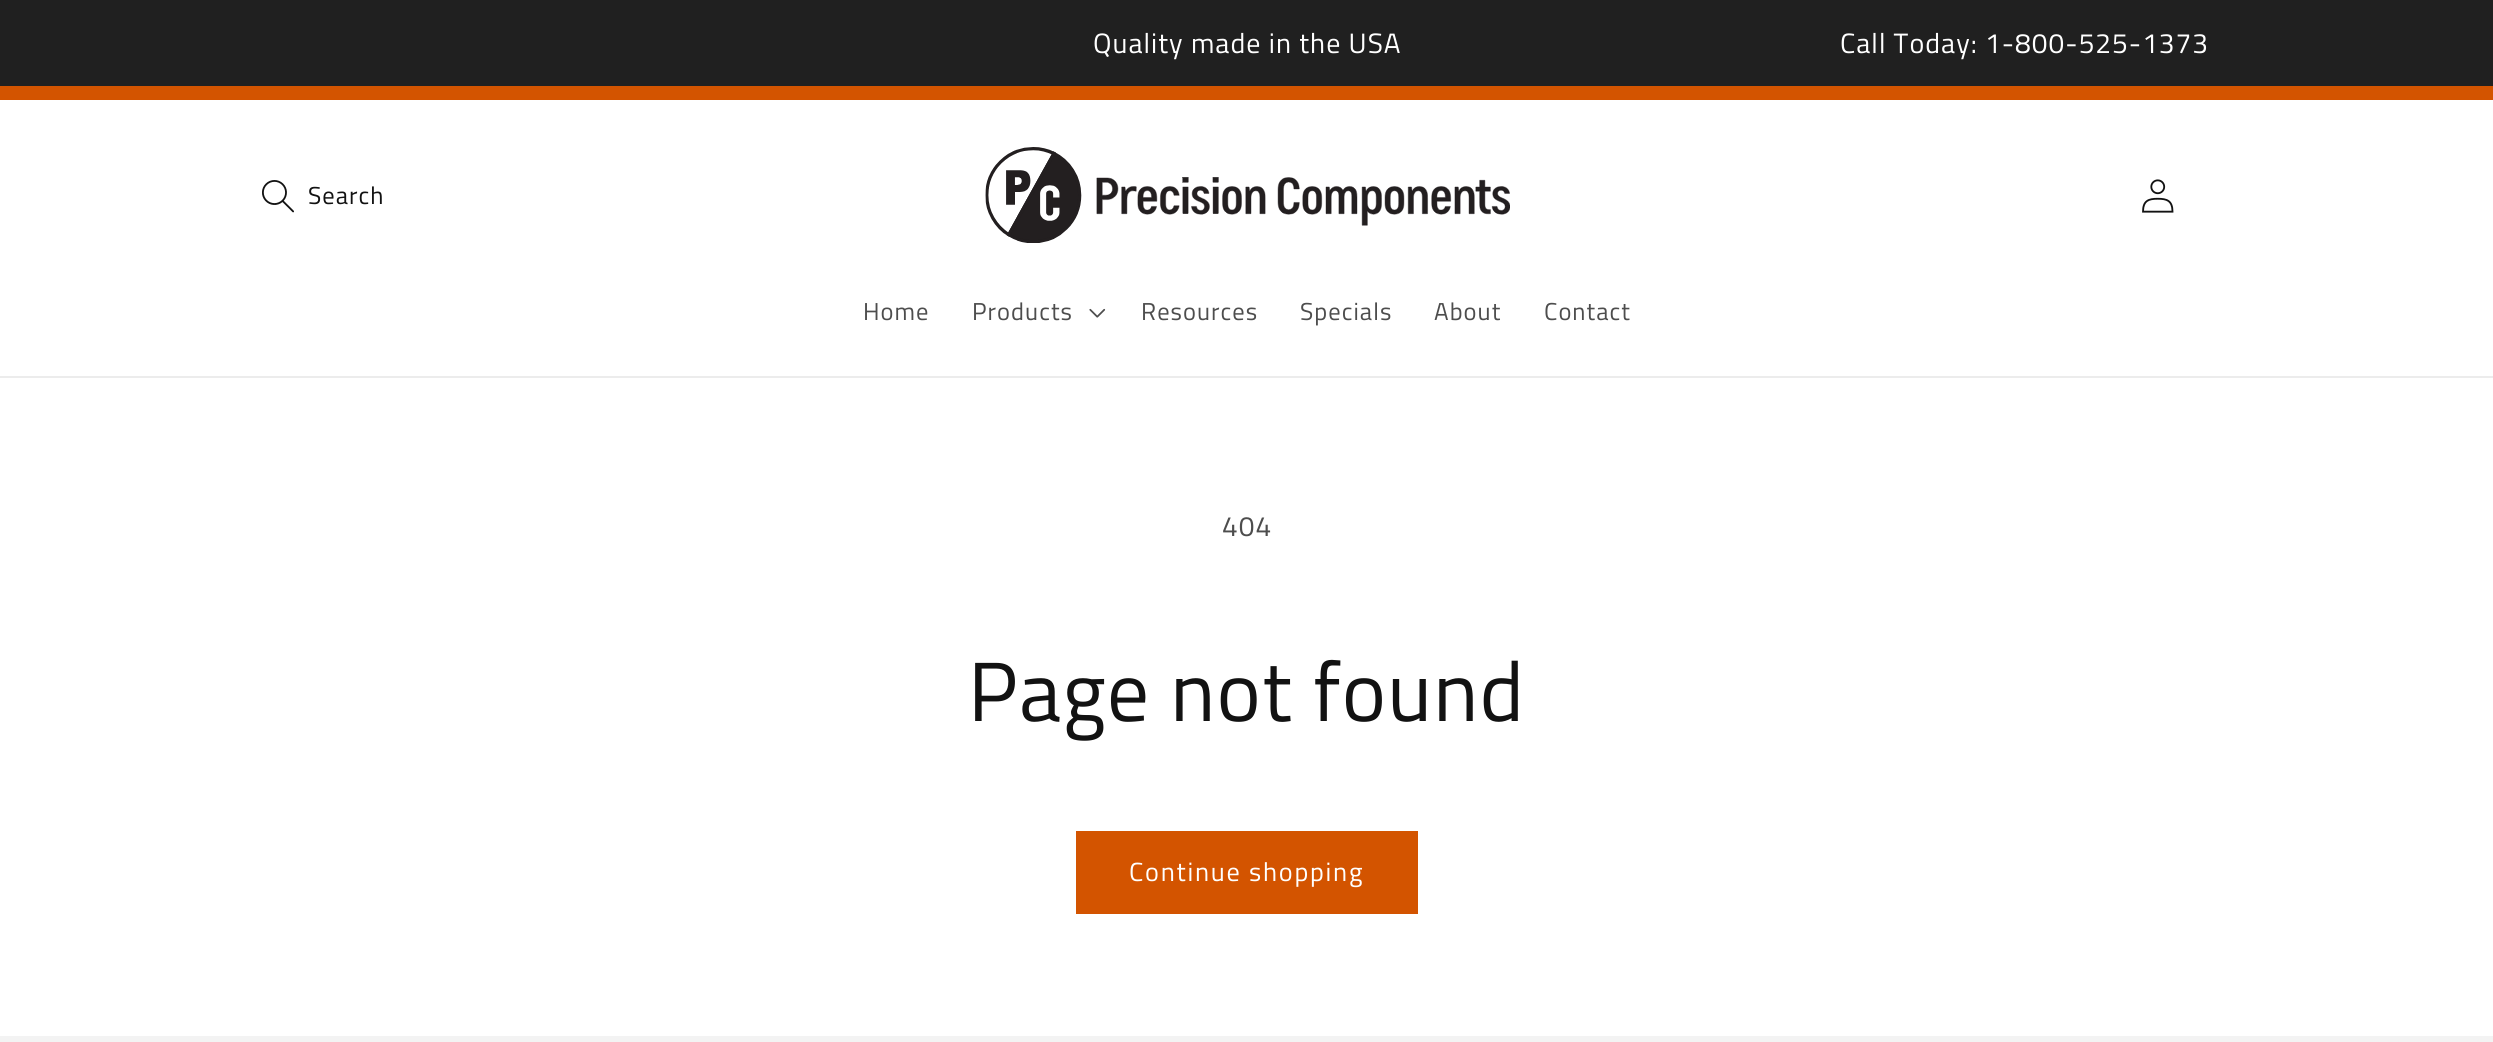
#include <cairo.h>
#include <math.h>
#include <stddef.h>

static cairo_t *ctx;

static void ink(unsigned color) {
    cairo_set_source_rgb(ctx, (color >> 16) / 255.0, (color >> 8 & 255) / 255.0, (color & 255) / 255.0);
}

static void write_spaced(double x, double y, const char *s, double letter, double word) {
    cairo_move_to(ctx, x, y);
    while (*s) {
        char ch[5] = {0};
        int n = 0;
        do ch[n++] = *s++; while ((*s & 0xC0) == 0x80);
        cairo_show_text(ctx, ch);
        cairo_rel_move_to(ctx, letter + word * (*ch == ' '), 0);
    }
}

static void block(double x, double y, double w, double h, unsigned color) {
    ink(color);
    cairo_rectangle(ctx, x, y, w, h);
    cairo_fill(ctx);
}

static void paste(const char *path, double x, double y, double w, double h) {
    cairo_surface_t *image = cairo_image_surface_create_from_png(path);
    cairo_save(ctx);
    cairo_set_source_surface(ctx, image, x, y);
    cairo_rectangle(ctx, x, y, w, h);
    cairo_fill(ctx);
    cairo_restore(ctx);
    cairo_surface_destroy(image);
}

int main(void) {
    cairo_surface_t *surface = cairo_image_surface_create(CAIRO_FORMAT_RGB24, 2493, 1042);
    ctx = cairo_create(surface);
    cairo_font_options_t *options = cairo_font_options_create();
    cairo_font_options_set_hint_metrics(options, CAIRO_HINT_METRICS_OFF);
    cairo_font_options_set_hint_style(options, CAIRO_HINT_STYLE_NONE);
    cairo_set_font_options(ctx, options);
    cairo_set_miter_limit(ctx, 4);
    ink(0xffffff);
    cairo_paint(ctx);
    block(0, 0, 2493, 86, 0x202020);
    block(0, 86, 2493, 14, 0xd35400);
    cairo_select_font_face(ctx, "Titillium Web", CAIRO_FONT_SLANT_NORMAL, CAIRO_FONT_WEIGHT_NORMAL);
    cairo_set_font_size(ctx, 28);
    ink(0xffffff);
    write_spaced(1093, 53, "Quality made in the USA", 1.05, 0);
    write_spaced(1840, 53, "Call Today: 1-800-525-1373", 1.05, 0);
    block(0, 376, 2493, 2, 0xececec);
    paste("pic1.png", 262, 180, 32, 33);
    cairo_set_font_size(ctx, 24.5);
    ink(0x121212);
    write_spaced(308, 204, "Search", 1.05, 0);
    paste("pic2.png", 985, 147, 525, 96);
    paste("pic3.png", 2142, 179, 32, 34);
    ink(0x4d4d4d);
    write_spaced(863, 320, "Home", 1.05, 0);
    write_spaced(972, 320, "Products", 1.05, 0);
    paste("pic4.png", 1089, 308, 17, 10);
    write_spaced(1141, 320, "Resources", 1.05, 0);
    write_spaced(1300, 320, "Specials", 1.05, 0);
    write_spaced(1434, 320, "About", 1.05, 0);
    write_spaced(1544, 320, "Contact", 1.05, 0);
    cairo_set_font_size(ctx, 28);
    write_spaced(1222, 536, "404", 1.05, 0);
    cairo_set_font_size(ctx, 84);
    ink(0x121212);
    write_spaced(968, 721, "Page not found", 1.25, 0);
    block(1076, 831, 342, 83, 0xd35400);
    cairo_set_font_size(ctx, 26.25);
    ink(0xffffff);
    write_spaced(1129, 881, "Continue shopping", 1.75, 0);
    block(0, 1036, 2493, 6, 0xf3f3f3);
    cairo_surface_write_to_png(surface, "screenshot.png");
    cairo_font_options_destroy(options);
    cairo_destroy(ctx);
    cairo_surface_destroy(surface);
    return 0;
}
